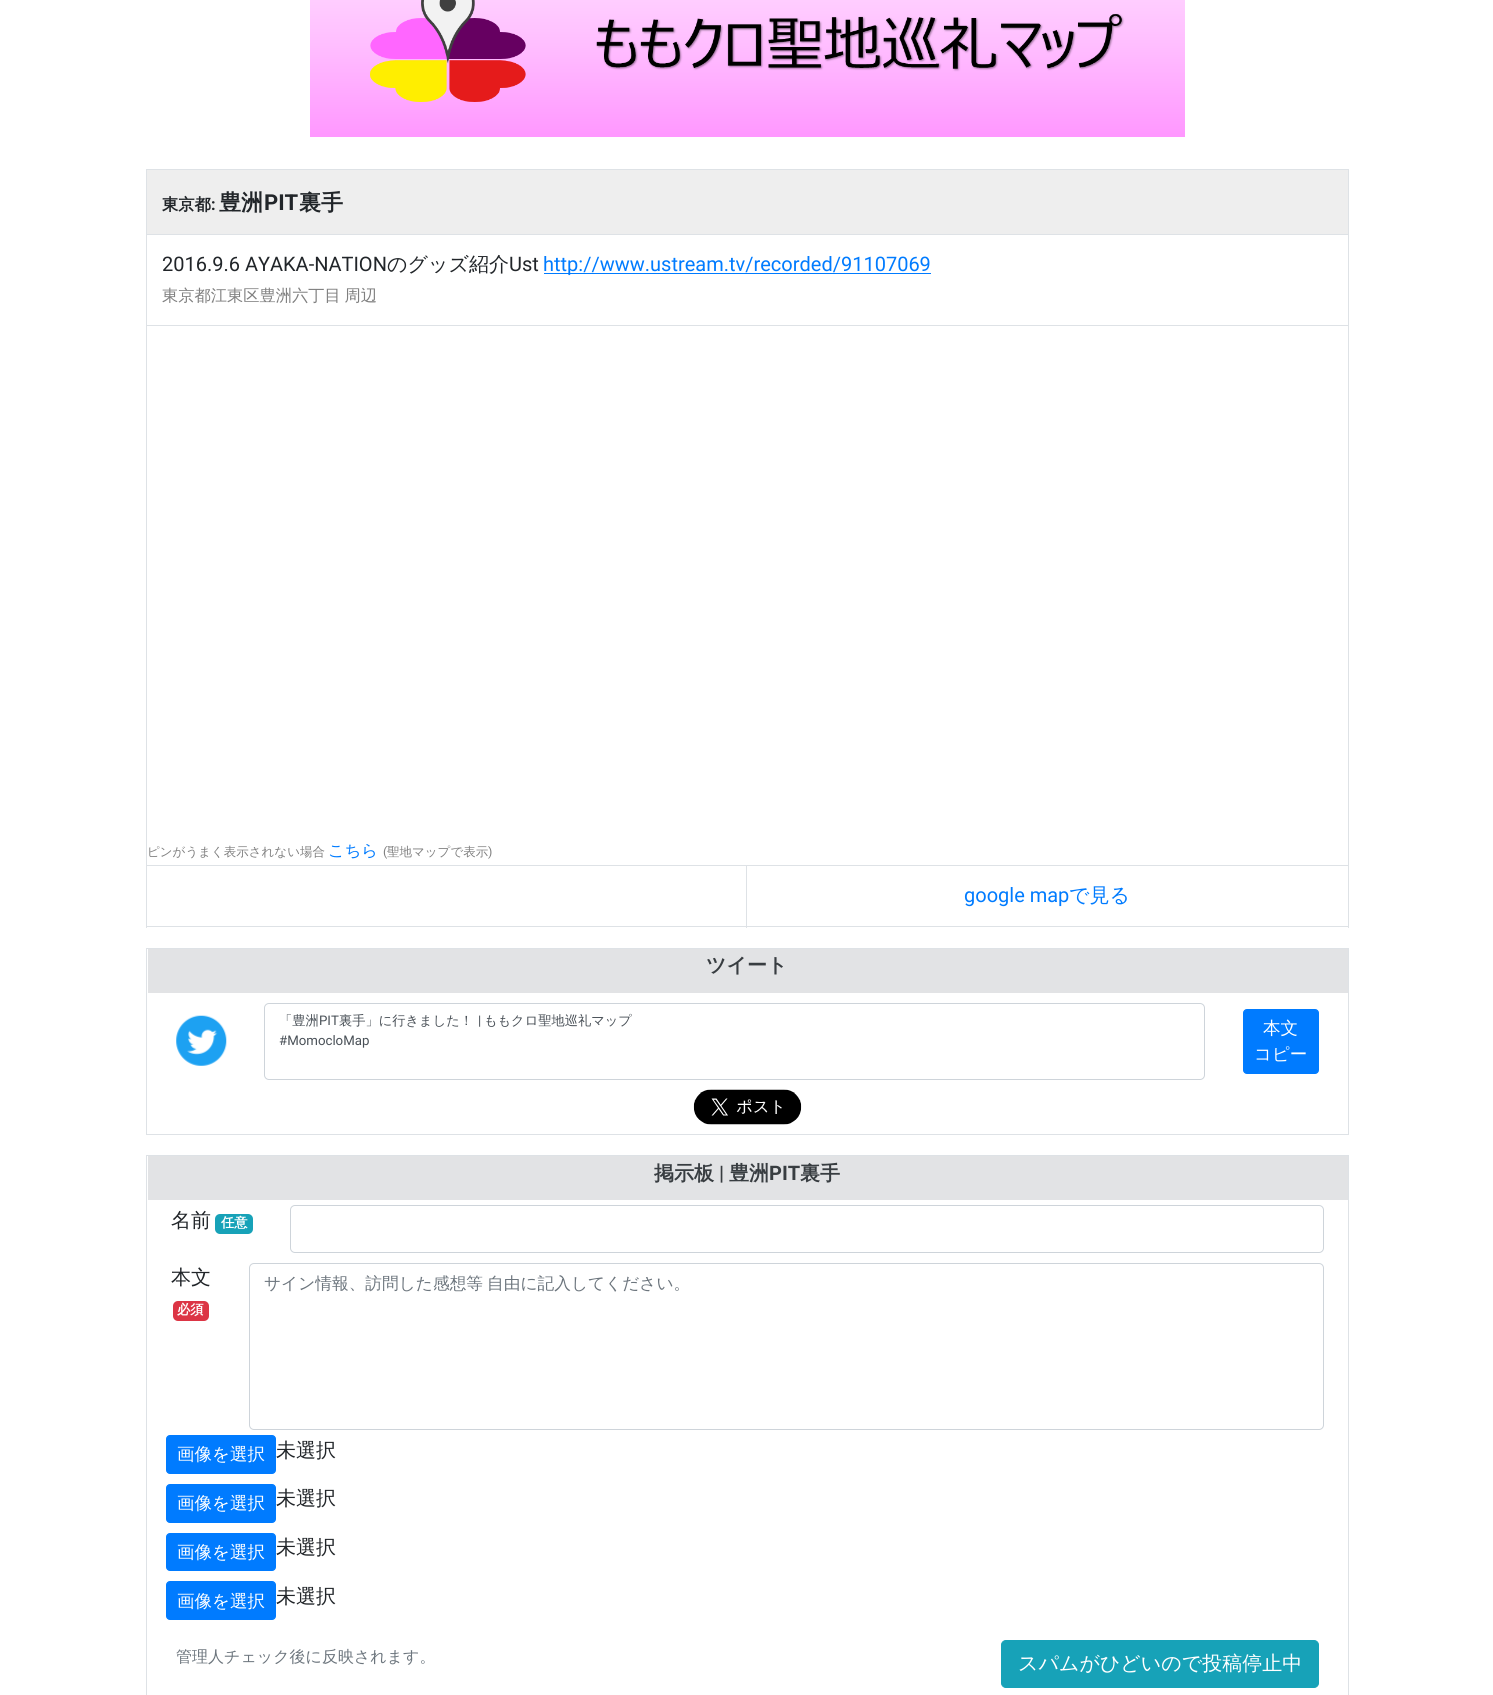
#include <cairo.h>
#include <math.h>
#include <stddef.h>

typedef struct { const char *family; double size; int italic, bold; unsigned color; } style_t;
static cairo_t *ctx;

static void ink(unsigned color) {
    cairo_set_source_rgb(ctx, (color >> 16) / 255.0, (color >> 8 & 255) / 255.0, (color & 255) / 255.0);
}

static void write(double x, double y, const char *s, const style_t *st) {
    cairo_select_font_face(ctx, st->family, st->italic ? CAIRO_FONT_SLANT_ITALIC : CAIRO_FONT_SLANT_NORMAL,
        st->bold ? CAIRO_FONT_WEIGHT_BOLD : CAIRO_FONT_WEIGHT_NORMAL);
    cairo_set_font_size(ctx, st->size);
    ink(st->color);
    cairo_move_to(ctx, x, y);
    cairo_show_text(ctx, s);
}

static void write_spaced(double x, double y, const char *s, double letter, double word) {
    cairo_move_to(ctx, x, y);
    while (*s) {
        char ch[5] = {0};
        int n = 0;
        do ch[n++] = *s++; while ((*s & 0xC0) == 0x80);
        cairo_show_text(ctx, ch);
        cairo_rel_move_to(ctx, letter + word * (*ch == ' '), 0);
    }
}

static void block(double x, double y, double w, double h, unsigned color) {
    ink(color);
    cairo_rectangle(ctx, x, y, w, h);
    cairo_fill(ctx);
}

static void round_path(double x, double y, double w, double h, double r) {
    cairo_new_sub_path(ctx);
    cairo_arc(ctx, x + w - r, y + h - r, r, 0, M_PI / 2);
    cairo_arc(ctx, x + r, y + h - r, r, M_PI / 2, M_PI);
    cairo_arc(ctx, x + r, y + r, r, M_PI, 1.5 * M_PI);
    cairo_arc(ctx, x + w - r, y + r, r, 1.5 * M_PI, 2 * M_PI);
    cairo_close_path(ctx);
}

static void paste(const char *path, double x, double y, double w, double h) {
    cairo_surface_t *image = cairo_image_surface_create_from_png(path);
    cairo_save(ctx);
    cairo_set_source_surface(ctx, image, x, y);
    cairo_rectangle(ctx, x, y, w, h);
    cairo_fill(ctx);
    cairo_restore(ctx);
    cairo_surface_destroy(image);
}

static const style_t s1 = {"WenQuanYi Zen Hei", 16.25, 0, 1, 0x212529};
static const style_t s2 = {"Roboto", 16.25, 0, 1, 0x212529};
static const style_t s3 = {"WenQuanYi Zen Hei", 22, 0, 1, 0x212529};
static const style_t s4 = {"Roboto", 22, 0, 1, 0x212529};
static const style_t s5 = {"Roboto", 20, 0, 0, 0x212529};
static const style_t s6 = {"WenQuanYi Zen Hei Medium", 20, 0, 0, 0x212529};
static const style_t s7 = {"Roboto", 20, 0, 0, 0x007bff};
static const style_t s8 = {"WenQuanYi Zen Hei Medium", 12.5, 0, 0, 0x808080};
static const style_t s9 = {"WenQuanYi Zen Hei Medium", 16.25, 0, 0, 0x007bff};
static const style_t s10 = {"Roboto", 12.5, 0, 0, 0x808080};
static const style_t s11 = {"WenQuanYi Zen Hei Medium", 20, 0, 0, 0x007bff};
static const style_t s12 = {"WenQuanYi Zen Hei", 20, 0, 1, 0x383d41};
static const style_t s13 = {"WenQuanYi Zen Hei Medium", 13.25, 0, 0, 0x495057};
static const style_t s14 = {"Roboto", 13.25, 0, 0, 0x495057};
static const style_t s15 = {"WenQuanYi Zen Hei Medium", 17.5, 0, 0, 0xffffff};
static const style_t s16 = {"Roboto", 20, 0, 1, 0x383d41};
static const style_t s17 = {"WenQuanYi Zen Hei", 13.25, 0, 1, 0xffffff};
static const style_t s18 = {"WenQuanYi Zen Hei Medium", 16, 0, 0, 0x6c757d};
static const style_t s19 = {"WenQuanYi Zen Hei Medium", 20, 0, 0, 0xffffff};

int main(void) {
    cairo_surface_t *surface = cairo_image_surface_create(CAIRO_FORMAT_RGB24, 1493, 1695);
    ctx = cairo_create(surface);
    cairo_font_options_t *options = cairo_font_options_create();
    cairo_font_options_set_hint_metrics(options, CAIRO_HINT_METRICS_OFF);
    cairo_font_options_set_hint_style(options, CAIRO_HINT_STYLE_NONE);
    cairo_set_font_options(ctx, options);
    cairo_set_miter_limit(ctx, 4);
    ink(0xffffff);
    cairo_paint(ctx);
    paste("pic1.png", 310, 0, 875, 137);
    block(146, 169, 1203, 1, 0xdee2e6);
    block(1348, 169, 1, 759, 0xdee2e6);
    block(146, 926, 1203, 1, 0xdee2e6);
    block(146, 169, 1, 759, 0xdee2e6);
    block(147, 170, 1201, 64, 0xeeeeee);
    write(162, 210, "東京都", &s1);
    write(211, 210, ":", &s2);
    write(219, 210, "豊洲", &s3);
    write(264, 210, "PIT", &s4);
    write(299, 210, "裏手", &s3);
    block(146, 234, 1203, 1, 0xdee2e6);
    write(162, 271, "2016.9.6 AYAKA-NATION", &s5);
    write(387, 271, "のグッズ紹介", &s6);
    write(509, 271, "Ust", &s5);
    block(544, 273, 387, 1, 0x007bff);
    write(543, 271, "http://www.ustream.tv/recorded/91107069", &s7);
    cairo_select_font_face(ctx, "WenQuanYi Zen Hei Medium", CAIRO_FONT_SLANT_NORMAL, CAIRO_FONT_WEIGHT_NORMAL);
    cairo_set_font_size(ctx, 16.25);
    ink(0x808080);
    write_spaced(162, 301, "東京都江東区豊洲六丁目 周辺", 0, -1);
    block(146, 325, 1203, 1, 0xdee2e6);
    write(147, 856, "ピンがうまく表示されない場合", &s8);
    write(328, 856, "こちら", &s9);
    write(383, 856, "(", &s10);
    write(387, 856, "聖地マップで表示", &s8);
    write(488, 856, ")", &s10);
    block(746, 865, 603, 1, 0xdee2e6);
    block(746, 865, 1, 63, 0xdee2e6);
    block(146, 865, 602, 1, 0xdee2e6);
    write(964, 902, "google map", &s7);
    write(1069, 902, "で見る", &s11);
    cairo_rectangle(ctx, 146.5, 948.5, 1202, 186);
    ink(0xdee2e6);
    cairo_set_line_width(ctx, 1);
    cairo_stroke(ctx);
    block(148, 949, 1200, 44, 0xe2e3e5);
    write(706, 972, "ツイート", &s12);
    paste("pic2.png", 176, 1015, 51, 51);
    round_path(264.5, 1003.5, 940, 76, 4.5);
    ink(0xced4da);
    cairo_stroke(ctx);
    write(279, 1025, "「豊洲", &s13);
    write(319, 1025, "PIT", &s14);
    write(339, 1025, "裏手」に行きました！", &s13);
    write(478, 1025, "|", &s14);
    write(484, 1025, "ももクロ聖地巡礼マップ", &s13);
    write(279, 1045, "#MomocloMap", &s14);
    ink(0x007bff);
    round_path(1243.5, 1009.5, 75, 64, 3.5);
    cairo_fill_preserve(ctx);
    cairo_stroke(ctx);
    write(1263, 1034, "本文", &s15);
    write(1254, 1060, "コピー", &s15);
    paste("pic3.png", 693, 1089, 109, 36);
    cairo_rectangle(ctx, 146.5, 1155.5, 1202, 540);
    ink(0xdee2e6);
    cairo_stroke(ctx);
    block(148, 1156, 1200, 44, 0xe2e3e5);
    write(654, 1180, "掲示板", &s12);
    write(719, 1180, "|", &s16);
    write(729, 1180, "豊洲", &s12);
    write(769, 1180, "PIT", &s16);
    write(800, 1180, "裏手", &s12);
    write(171, 1227, "名前", &s6);
    ink(0x17a2b8);
    round_path(215, 1214, 38, 20, 5);
    cairo_fill(ctx);
    write(221, 1227, "任意", &s17);
    round_path(290.5, 1205.5, 1033, 47, 4.5);
    ink(0xced4da);
    cairo_stroke(ctx);
    write(171, 1284, "本文", &s6);
    ink(0xdc3545);
    round_path(173, 1301, 36, 20, 5);
    cairo_fill(ctx);
    write(177, 1314, "必須", &s17);
    round_path(249.5, 1263.5, 1074, 166, 4.5);
    ink(0xced4da);
    cairo_stroke(ctx);
    cairo_select_font_face(ctx, "WenQuanYi Zen Hei Medium", CAIRO_FONT_SLANT_NORMAL, CAIRO_FONT_WEIGHT_NORMAL);
    cairo_set_font_size(ctx, 16.7);
    ink(0x6c757d);
    write_spaced(264, 1289, "サイン情報、訪問した感想等 自由に記入してください。", 0, -1);
    ink(0x007bff);
    round_path(166.5, 1435.5, 109, 38, 3.5);
    cairo_fill_preserve(ctx);
    cairo_stroke(ctx);
    write(177, 1460, "画像を選択", &s15);
    write(276, 1457, "未選択", &s6);
    ink(0x007bff);
    round_path(166.5, 1484.5, 109, 38, 3.5);
    cairo_fill_preserve(ctx);
    cairo_stroke(ctx);
    write(177, 1509, "画像を選択", &s15);
    write(276, 1505, "未選択", &s6);
    ink(0x007bff);
    round_path(166.5, 1533.5, 109, 37, 3.5);
    cairo_fill_preserve(ctx);
    cairo_stroke(ctx);
    write(177, 1558, "画像を選択", &s15);
    write(276, 1554, "未選択", &s6);
    ink(0x007bff);
    round_path(166.5, 1581.5, 109, 38, 3.5);
    cairo_fill_preserve(ctx);
    cairo_stroke(ctx);
    write(177, 1607, "画像を選択", &s15);
    write(276, 1603, "未選択", &s6);
    write(176, 1662, "管理人チェック後に反映されます。", &s18);
    ink(0x17a2b8);
    round_path(1001.5, 1640.5, 317, 47, 4.5);
    cairo_fill_preserve(ctx);
    cairo_stroke(ctx);
    write(1018, 1670, "スパムがひどいので投稿停止中", &s19);
    cairo_surface_write_to_png(surface, "screenshot.png");
    cairo_font_options_destroy(options);
    cairo_destroy(ctx);
    cairo_surface_destroy(surface);
    return 0;
}
